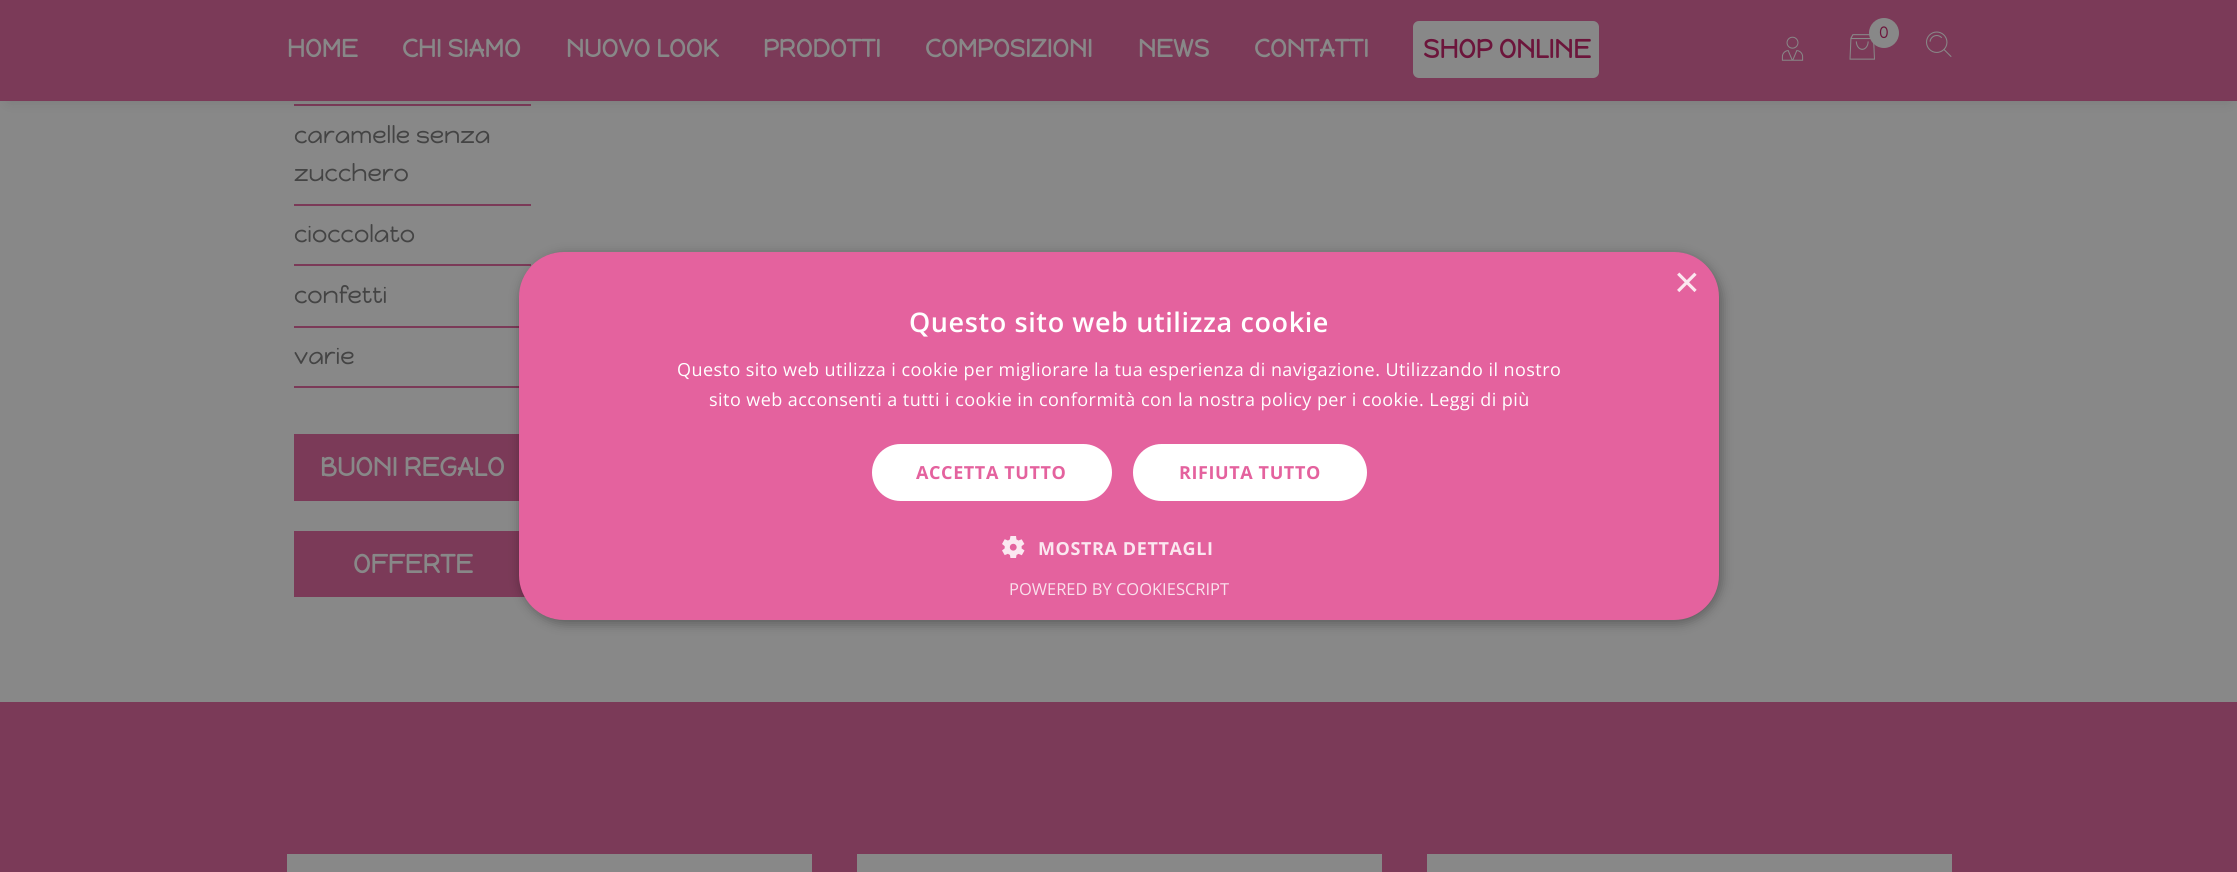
#include <cairo.h>
#include <math.h>
#include <stddef.h>

typedef struct { const char *family; double size; int italic, bold; unsigned color; } style_t;
static cairo_t *ctx;

static void ink(unsigned color) {
    cairo_set_source_rgb(ctx, (color >> 16) / 255.0, (color >> 8 & 255) / 255.0, (color & 255) / 255.0);
}

static void write(double x, double y, const char *s, const style_t *st) {
    cairo_select_font_face(ctx, st->family, st->italic ? CAIRO_FONT_SLANT_ITALIC : CAIRO_FONT_SLANT_NORMAL,
        st->bold ? CAIRO_FONT_WEIGHT_BOLD : CAIRO_FONT_WEIGHT_NORMAL);
    cairo_set_font_size(ctx, st->size);
    ink(st->color);
    cairo_move_to(ctx, x, y);
    cairo_show_text(ctx, s);
}

static void write_spaced(double x, double y, const char *s, double letter, double word) {
    cairo_move_to(ctx, x, y);
    while (*s) {
        char ch[5] = {0};
        int n = 0;
        do ch[n++] = *s++; while ((*s & 0xC0) == 0x80);
        cairo_show_text(ctx, ch);
        cairo_rel_move_to(ctx, letter + word * (*ch == ' '), 0);
    }
}

static void block(double x, double y, double w, double h, unsigned color) {
    ink(color);
    cairo_rectangle(ctx, x, y, w, h);
    cairo_fill(ctx);
}

static void round_path(double x, double y, double w, double h, double r) {
    cairo_new_sub_path(ctx);
    cairo_arc(ctx, x + w - r, y + h - r, r, 0, M_PI / 2);
    cairo_arc(ctx, x + r, y + h - r, r, M_PI / 2, M_PI);
    cairo_arc(ctx, x + r, y + r, r, M_PI, 1.5 * M_PI);
    cairo_arc(ctx, x + w - r, y + r, r, 1.5 * M_PI, 2 * M_PI);
    cairo_close_path(ctx);
}

static void blur_box(double x, double y, double w, double h, double r, double blur, double alpha) {
    cairo_push_group_with_content(ctx, CAIRO_CONTENT_ALPHA);
    cairo_set_operator(ctx, CAIRO_OPERATOR_SOURCE);
    for (int i = 15; i >= -15 && fmin(w, h) + blur * i / 3 > 0; i -= 2) {
        double e = blur * i / 6;
        cairo_set_source_rgba(ctx, 0, 0, 0, alpha * erfc((i - 1) / 8.5) / 2);
        round_path(x - e, y - e, w + 2 * e, h + 2 * e, fmax(0, fmin(r + e + blur * .6, fmin(w, h) / 2 + e)));
        cairo_fill(ctx);
    }
    cairo_pattern_t *soft = cairo_pop_group(ctx);
    cairo_mask(ctx, soft);
    cairo_pattern_destroy(soft);
}

static void paste(const char *path, double x, double y, double w, double h) {
    cairo_surface_t *image = cairo_image_surface_create_from_png(path);
    cairo_save(ctx);
    cairo_set_source_surface(ctx, image, x, y);
    cairo_rectangle(ctx, x, y, w, h);
    cairo_fill(ctx);
    cairo_restore(ctx);
    cairo_surface_destroy(image);
}

static const style_t s1 = {"Happy Monkey", 16.5, 0, 0, 0x6c153b};
static const style_t s2 = {"Happy Monkey", 25, 0, 1, 0x888888};
static const style_t s3 = {"Happy Monkey", 26.25, 0, 1, 0x6c153b};
static const style_t s4 = {"Happy Monkey", 24, 0, 0, 0x444444};
static const style_t s5 = {"Happy Monkey", 26.25, 0, 1, 0x888888};
static const style_t s6 = {"Liberation Sans", 44, 0, 0, 0xfbe7f0};
static const style_t s7 = {"Open Sans", 16.5, 0, 0, 0xfae0ec};

int main(void) {
    cairo_surface_t *surface = cairo_image_surface_create(CAIRO_FORMAT_RGB24, 2237, 872);
    ctx = cairo_create(surface);
    cairo_font_options_t *options = cairo_font_options_create();
    cairo_font_options_set_hint_metrics(options, CAIRO_HINT_METRICS_OFF);
    cairo_font_options_set_hint_style(options, CAIRO_HINT_STYLE_NONE);
    cairo_set_font_options(ctx, options);
    cairo_set_miter_limit(ctx, 4);
    ink(0x888888);
    cairo_paint(ctx);
    block(294, 104, 237, 2, 0x7b3a58);
    ink(0x090909);
    blur_box(9, 15, 2220, 84, 0, 7.5, 0.15);
    block(0, 0, 2237, 101, 0x7b3a58);
    paste("pic1.png", 1781, 36, 23, 25);
    paste("pic2.png", 1849, 34, 26, 26);
    ink(0x888888);
    cairo_arc(ctx, 1884, 33, 15, 0, 2 * M_PI);
    cairo_fill(ctx);
    write(1879, 38, "0", &s1);
    paste("pic3.png", 1926, 31, 26, 26);
    write(287, 57, "HOME", &s2);
    write(402, 57, "CHI SIAMO", &s2);
    write(566, 57, "NUOVO LOOK", &s2);
    write(763, 57, "PRODOTTI", &s2);
    write(925, 57, "COMPOSIZIONI", &s2);
    write(1138, 57, "NEWS", &s2);
    write(1254, 57, "CONTATTI", &s2);
    round_path(1413, 21, 186, 57, 6);
    cairo_fill(ctx);
    write(1423, 58, "SHOP ONLINE", &s3);
    block(0, 702, 2237, 170, 0x7b3a58);
    block(294, 204, 237, 2, 0x7b3a58);
    write(294, 143, "caramelle senza", &s4);
    write(294, 181, "zucchero", &s4);
    block(294, 264, 237, 2, 0x7b3a58);
    write(294, 242, "cioccolato", &s4);
    block(294, 326, 225, 2, 0x7b3a58);
    write(294, 303, "confetti", &s4);
    block(294, 386, 225, 2, 0x7b3a58);
    write(294, 364, "varie", &s4);
    block(294, 434, 225, 67, 0x7b3a58);
    write(320, 476, "BUONI REGALO", &s5);
    block(294, 531, 231, 66, 0x7b3a58);
    write(353, 573, "OFFERTE", &s5);
    block(287, 854, 525, 18, 0x888888);
    block(857, 854, 525, 18, 0x888888);
    block(1427, 854, 525, 18, 0x888888);
    ink(0x000000);
    blur_box(521, 255, 1200, 368, 45, 6, 0.35);
    ink(0xe4629e);
    round_path(519, 252, 1200, 368, 45);
    cairo_fill(ctx);
    write(1674, 297, "×", &s6);
    cairo_select_font_face(ctx, "Open Sans SemiBold", CAIRO_FONT_SLANT_NORMAL, CAIRO_FONT_WEIGHT_NORMAL);
    cairo_set_font_size(ctx, 27);
    ink(0xffffff);
    write_spaced(909, 332, "Questo sito web utilizza cookie", 0.6, 0);
    cairo_select_font_face(ctx, "Open Sans", CAIRO_FONT_SLANT_NORMAL, CAIRO_FONT_WEIGHT_NORMAL);
    cairo_set_font_size(ctx, 18);
    write_spaced(677, 376, "Questo sito web utilizza i cookie per migliorare la tua esperienza di navigazione. Utilizzando il nostro", 0.45, 0);
    write_spaced(709, 406, "sito web acconsenti a tutti i cookie in conformità con la nostra policy per i cookie. Leggi di più", 0.45, 0);
    round_path(872, 444, 240, 57, 28.5);
    cairo_fill(ctx);
    cairo_select_font_face(ctx, "Open Sans", CAIRO_FONT_SLANT_NORMAL, CAIRO_FONT_WEIGHT_BOLD);
    ink(0xe4629e);
    write_spaced(916, 479, "ACCETTA TUTTO", 0.6, 0);
    ink(0xffffff);
    round_path(1134, 445, 232, 55, 27.5);
    cairo_fill_preserve(ctx);
    cairo_stroke(ctx);
    ink(0xe4629e);
    write_spaced(1179, 479, "RIFIUTA TUTTO", 0.6, 0);
    paste("pic4.png", 1002, 536, 23, 22);
    ink(0xfbe7f0);
    write_spaced(1038, 555, "MOSTRA DETTAGLI", 0.6, 0);
    write(1009, 595, "POWERED BY COOKIESCRIPT", &s7);
    cairo_surface_write_to_png(surface, "screenshot.png");
    cairo_font_options_destroy(options);
    cairo_destroy(ctx);
    cairo_surface_destroy(surface);
    return 0;
}
